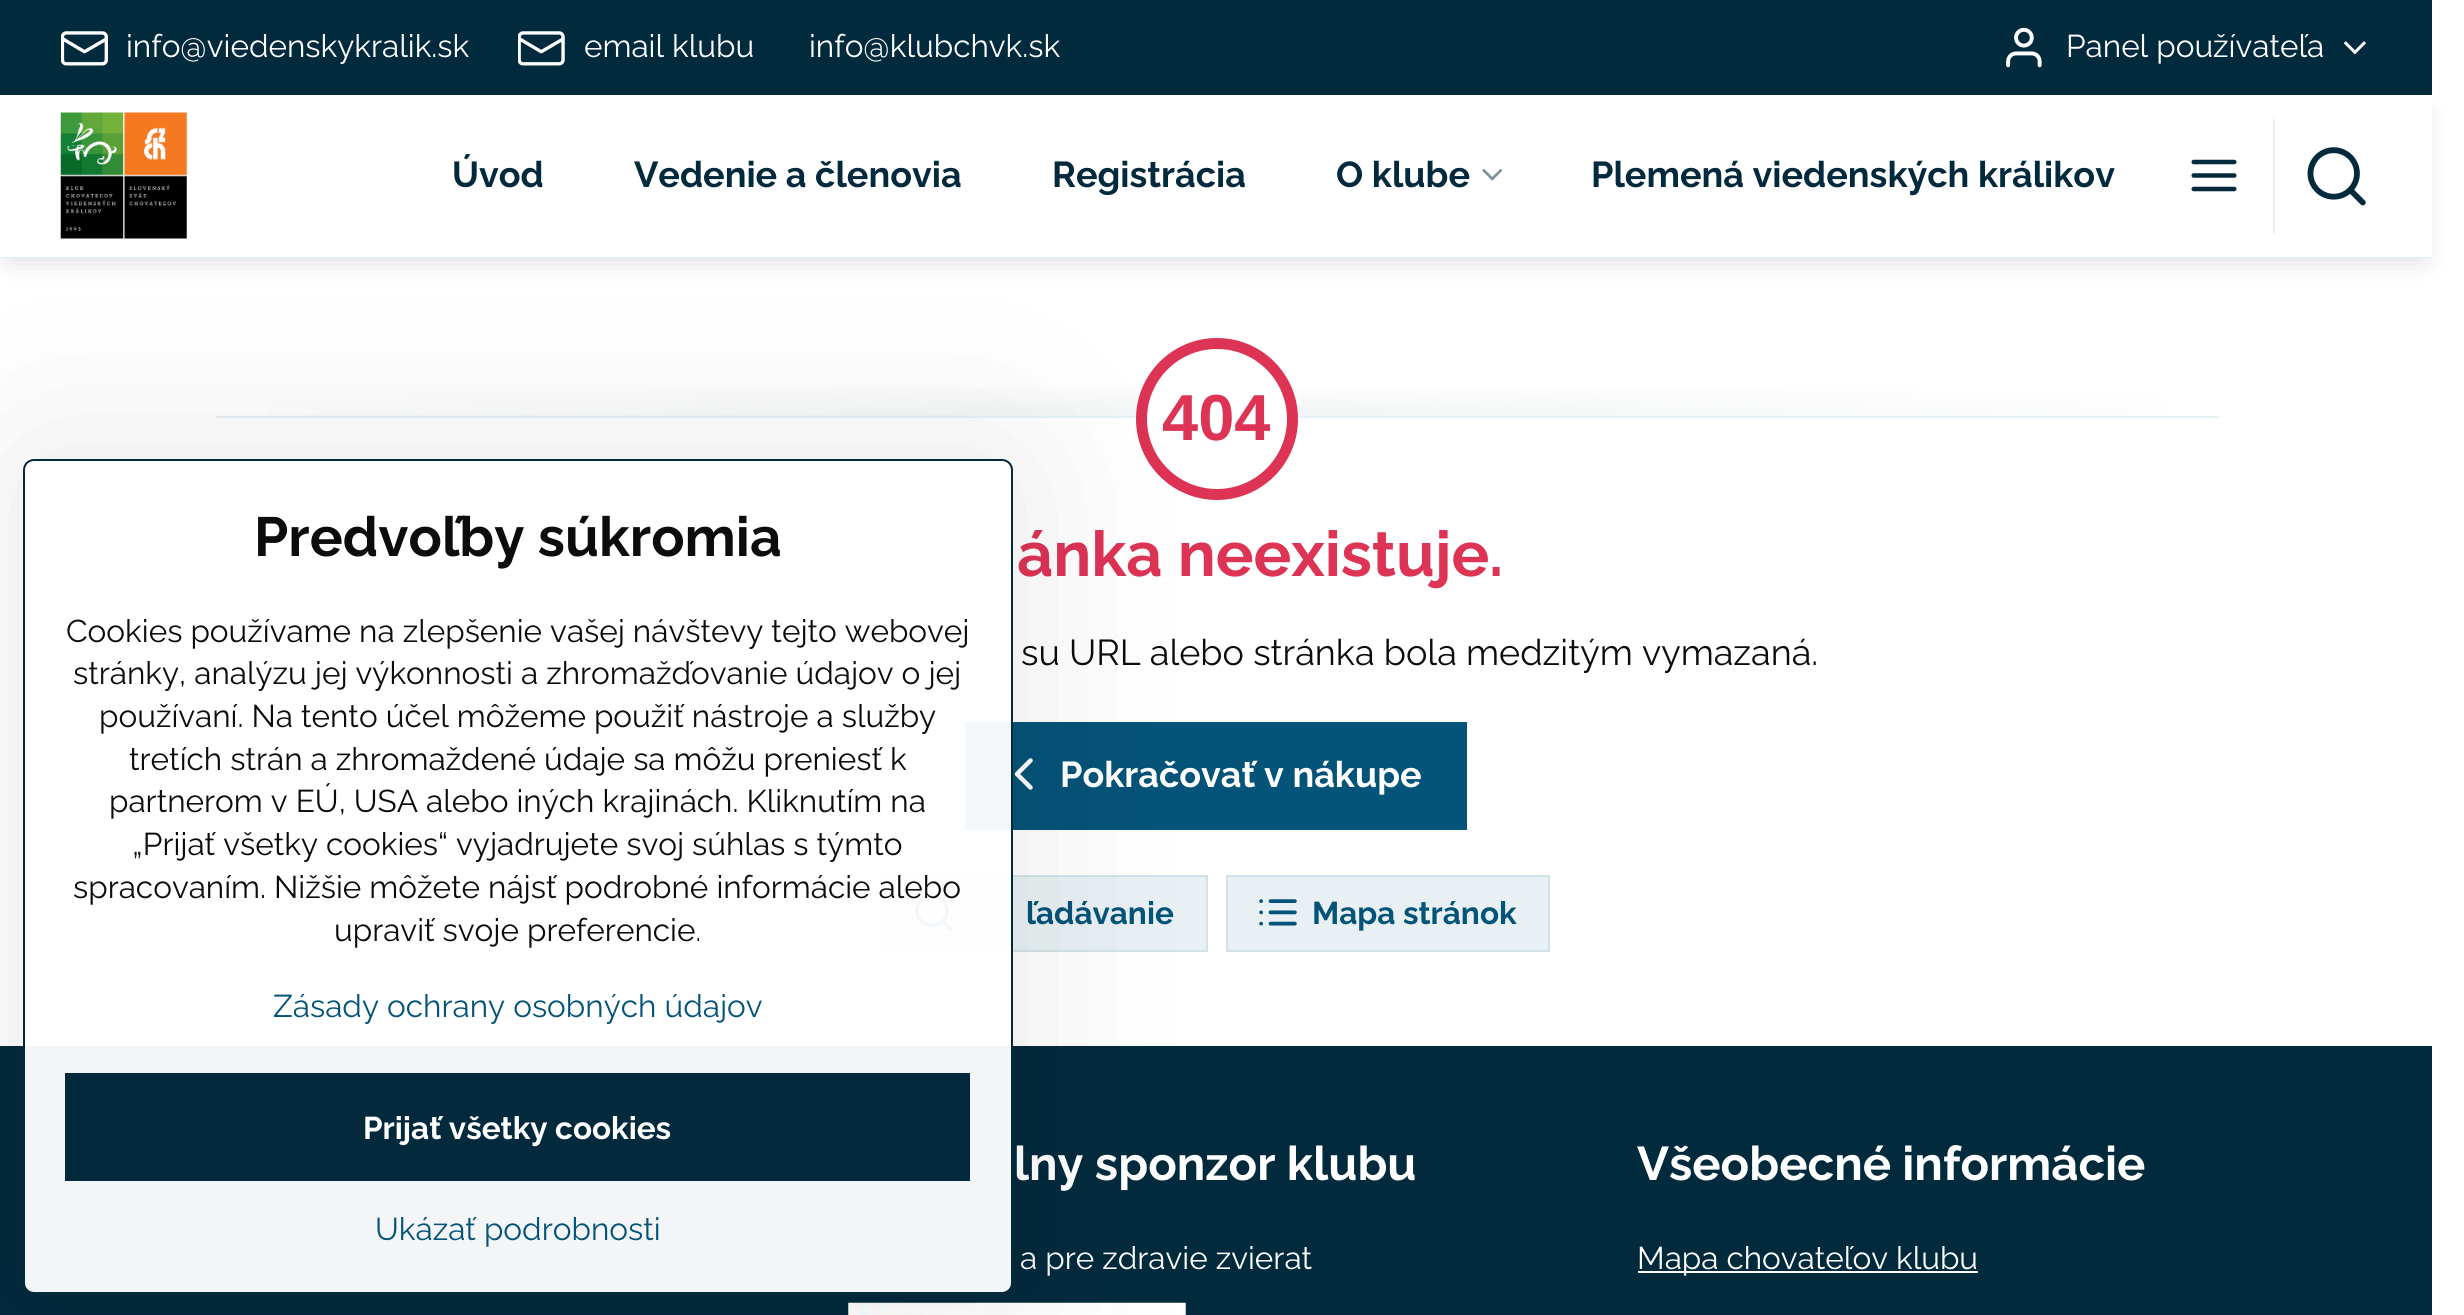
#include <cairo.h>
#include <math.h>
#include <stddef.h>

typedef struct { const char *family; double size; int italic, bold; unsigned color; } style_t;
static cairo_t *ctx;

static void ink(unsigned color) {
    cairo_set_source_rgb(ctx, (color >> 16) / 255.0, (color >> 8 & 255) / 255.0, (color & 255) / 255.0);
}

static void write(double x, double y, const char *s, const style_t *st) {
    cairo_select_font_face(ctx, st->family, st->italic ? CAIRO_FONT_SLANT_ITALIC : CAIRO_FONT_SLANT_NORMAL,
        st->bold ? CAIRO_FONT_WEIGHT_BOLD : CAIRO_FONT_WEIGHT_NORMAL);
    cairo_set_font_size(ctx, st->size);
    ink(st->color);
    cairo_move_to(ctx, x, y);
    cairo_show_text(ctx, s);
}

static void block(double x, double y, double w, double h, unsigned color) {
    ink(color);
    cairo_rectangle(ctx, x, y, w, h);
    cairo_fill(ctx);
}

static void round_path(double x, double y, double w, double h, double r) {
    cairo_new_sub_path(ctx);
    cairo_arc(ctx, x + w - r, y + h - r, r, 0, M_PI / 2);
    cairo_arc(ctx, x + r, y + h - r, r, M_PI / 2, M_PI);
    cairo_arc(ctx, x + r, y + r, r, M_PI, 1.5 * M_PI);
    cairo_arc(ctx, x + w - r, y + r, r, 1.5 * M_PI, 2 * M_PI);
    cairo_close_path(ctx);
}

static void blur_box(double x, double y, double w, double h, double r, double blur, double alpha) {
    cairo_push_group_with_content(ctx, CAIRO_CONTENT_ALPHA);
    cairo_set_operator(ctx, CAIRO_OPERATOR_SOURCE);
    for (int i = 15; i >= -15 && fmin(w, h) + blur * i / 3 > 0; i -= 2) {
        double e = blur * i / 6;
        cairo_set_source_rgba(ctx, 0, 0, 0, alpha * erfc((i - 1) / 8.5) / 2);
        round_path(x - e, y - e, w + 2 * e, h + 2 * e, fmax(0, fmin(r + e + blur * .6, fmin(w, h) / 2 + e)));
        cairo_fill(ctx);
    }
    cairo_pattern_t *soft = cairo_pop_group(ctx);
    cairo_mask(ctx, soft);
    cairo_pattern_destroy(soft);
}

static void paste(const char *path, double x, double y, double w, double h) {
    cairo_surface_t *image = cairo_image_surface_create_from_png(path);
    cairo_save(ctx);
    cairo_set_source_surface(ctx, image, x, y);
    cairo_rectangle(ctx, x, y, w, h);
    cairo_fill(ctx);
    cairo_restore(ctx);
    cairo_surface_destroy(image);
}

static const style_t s1 = {"Raleway Thin", 31.5, 0, 0, 0xffffff};
static const style_t s2 = {"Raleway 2 Thin", 36, 0, 0, 0x02293c};
static const style_t s3 = {"Liberation Sans", 65, 0, 1, 0xdd3355};
static const style_t s4 = {"Raleway 2 Thin", 63, 0, 0, 0xdd3355};
static const style_t s5 = {"Raleway Thin", 36, 0, 0, 0x0d0c0c};
static const style_t s6 = {"Raleway 2 Thin", 36, 0, 0, 0xffffff};
static const style_t s7 = {"Raleway 2 Thin", 31.5, 0, 0, 0x045378};
static const style_t s8 = {"Raleway 2 Thin", 47.25, 0, 0, 0xffffff};
static const style_t s9 = {"Raleway 2 Thin", 55.1, 0, 0, 0x0d0c0c};
static const style_t s10 = {"Raleway Thin", 31.5, 0, 0, 0x0d0c0c};
static const style_t s11 = {"Raleway Thin", 31.5, 0, 0, 0x045378};
static const style_t s12 = {"Raleway 2 Thin", 31.5, 0, 0, 0xffffff};

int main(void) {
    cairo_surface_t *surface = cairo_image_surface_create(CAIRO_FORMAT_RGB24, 2464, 1315);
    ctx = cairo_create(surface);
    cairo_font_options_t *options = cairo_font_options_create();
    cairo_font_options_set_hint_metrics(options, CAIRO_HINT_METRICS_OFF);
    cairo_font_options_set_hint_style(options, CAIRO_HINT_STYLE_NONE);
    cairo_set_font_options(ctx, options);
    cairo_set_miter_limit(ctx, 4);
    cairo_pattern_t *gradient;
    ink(0xffffff);
    cairo_paint(ctx);
    block(0, 0, 2432, 95, 0x022a3d);
    paste("pic1.png", 61, 31, 47, 35);
    write(126, 57, "info@viedenskykralik.sk", &s1);
    paste("pic2.png", 518, 31, 47, 35);
    write(584, 57, "email klubu", &s1);
    write(809, 57, "info@klubchvk.sk", &s1);
    paste("pic3.png", 2006, 27, 36, 41);
    write(2066, 57, "Panel používateľa", &s1);
    paste("pic4.png", 2344, 41, 22, 14);
    ink(0x000014);
    blur_box(9, 113, 2414, 146, 0, 13.5, 0.15);
    block(0, 95, 2432, 162, 0xffffff);
    block(0, 257, 2432, 2, 0xe6f1f5);
    paste("pic5.png", 60, 112, 127, 127);
    block(2273, 119, 2, 115, 0xe6f1f5);
    paste("pic6.png", 2307, 147, 59, 59);
    write(452, 187, "Úvod", &s2);
    write(634, 187, "Vedenie a členovia", &s2);
    write(1052, 187, "Registrácia", &s2);
    write(1336, 187, "O klube", &s2);
    paste("pic7.png", 1482, 168, 21, 13);
    write(1591, 187, "Plemená viedenských králikov", &s2);
    paste("pic8.png", 2191, 159, 46, 33);
    block(216, 416, 2003, 2, 0xe6f1f5);
    gradient = cairo_pattern_create_radial(0, 0, 0, 0, 0, 1);
    cairo_pattern_set_matrix(gradient, &(cairo_matrix_t){1.0 / 1699, 0, 0, 1.0 / 51, -1.0 * 1217 / 1699, -1.0 * 416 / 51});
    cairo_pattern_add_color_stop_rgba(gradient, 0, 0.949, 0.957, 0.961, 1);
    cairo_pattern_add_color_stop_rgba(gradient, 0.7, 1, 1, 1, 1);
    cairo_set_source(ctx, gradient);
    cairo_pattern_destroy(gradient);
    cairo_rectangle(ctx, 267, 387, 1900, 29);
    cairo_fill(ctx);
    ink(0xffffff);
    cairo_arc(ctx, 1217, 419, 75.5, 0, 2 * M_PI);
    cairo_fill_preserve(ctx);
    ink(0xdd3355);
    cairo_set_line_width(ctx, 11);
    cairo_stroke(ctx);
    write(1162, 440, "404", &s3);
    write(1017, 576, "ánka neexistuje.", &s4);
    write(1021, 665, "su URL alebo stránka bola medzitým vymazaná.", &s5);
    block(965, 722, 502, 108, 0x045378);
    paste("pic9.png", 1014, 758, 19, 32);
    write(1060, 787, "Pokračovať v nákupe", &s6);
    ink(0xe8f0f3);
    cairo_rectangle(ctx, 883, 876, 324, 75);
    cairo_fill_preserve(ctx);
    ink(0xd3e2e8);
    cairo_set_line_width(ctx, 2);
    cairo_stroke(ctx);
    paste("pic10.png", 915, 893, 38, 39);
    write(1026, 924, "ľadávanie", &s7);
    ink(0xe8f0f3);
    cairo_rectangle(ctx, 1227, 876, 322, 75);
    cairo_fill_preserve(ctx);
    ink(0xd3e2e8);
    cairo_stroke(ctx);
    paste("pic11.png", 1259, 899, 38, 27);
    write(1312, 924, "Mapa stránok", &s7);
    block(0, 1046, 2432, 269, 0x022a3d);
    write(1014, 1180, "lny sponzor klubu", &s8);
    write(1020, 1269, "a pre zdravie zvierat", &s1);
    paste("pic12.png", 848, 1302, 338, 13);
    write(1637, 1180, "Všeobecné informácie", &s8);
    block(1638, 1271, 340, 2, 0xffffff);
    write(1637, 1269, "Mapa chovateľov klubu", &s1);
    cairo_save(ctx);
    cairo_set_fill_rule(ctx, CAIRO_FILL_RULE_EVEN_ODD);
    cairo_new_path(ctx);
    cairo_move_to(ctx, 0, 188);
    cairo_line_to(ctx, 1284, 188);
    cairo_line_to(ctx, 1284, 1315);
    cairo_line_to(ctx, 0, 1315);
    cairo_close_path(ctx);
    cairo_move_to(ctx, 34, 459);
    cairo_line_to(ctx, 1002, 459);
    cairo_curve_to(ctx, 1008, 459, 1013, 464, 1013, 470);
    cairo_line_to(ctx, 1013, 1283);
    cairo_curve_to(ctx, 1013, 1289, 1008, 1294, 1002, 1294);
    cairo_line_to(ctx, 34, 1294);
    cairo_curve_to(ctx, 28, 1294, 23, 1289, 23, 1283);
    cairo_line_to(ctx, 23, 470);
    cairo_curve_to(ctx, 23, 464, 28, 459, 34, 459);
    cairo_close_path(ctx);
    cairo_clip(ctx);
    ink(0x000000);
    blur_box(23, 459, 990, 835, 11, 90, 0.1);
    cairo_restore(ctx);
    cairo_set_source_rgba(ctx, 1, 1, 1, 0.95);
    round_path(24, 460, 988, 833, 10);
    cairo_fill_preserve(ctx);
    ink(0x02293c);
    cairo_stroke(ctx);
    write(254, 556, "Predvoľby súkromia", &s9);
    write(66, 642, "Cookies používame na zlepšenie vašej návštevy tejto webovej", &s10);
    write(73, 684, "stránky, analýzu jej výkonnosti a zhromažďovanie údajov o jej", &s10);
    write(99, 727, "používaní. Na tento účel môžeme použiť nástroje a služby", &s10);
    write(129, 770, "tretích strán a zhromaždené údaje sa môžu preniesť k", &s10);
    write(109, 812, "partnerom v EÚ, USA alebo iných krajinách. Kliknutím na", &s10);
    write(132, 855, "„Prijať všetky cookies“ vyjadrujete svoj súhlas s týmto", &s10);
    write(73, 898, "spracovaním. Nižšie môžete nájsť podrobné informácie alebo", &s10);
    write(334, 941, "upraviť svoje preferencie.", &s10);
    write(273, 1017, "Zásady ochrany osobných údajov", &s11);
    block(65, 1073, 905, 108, 0x02293c);
    write(363, 1139, "Prijať všetky cookies", &s12);
    write(375, 1240, "Ukázať podrobnosti", &s11);
    cairo_surface_write_to_png(surface, "screenshot.png");
    cairo_font_options_destroy(options);
    cairo_destroy(ctx);
    cairo_surface_destroy(surface);
    return 0;
}
